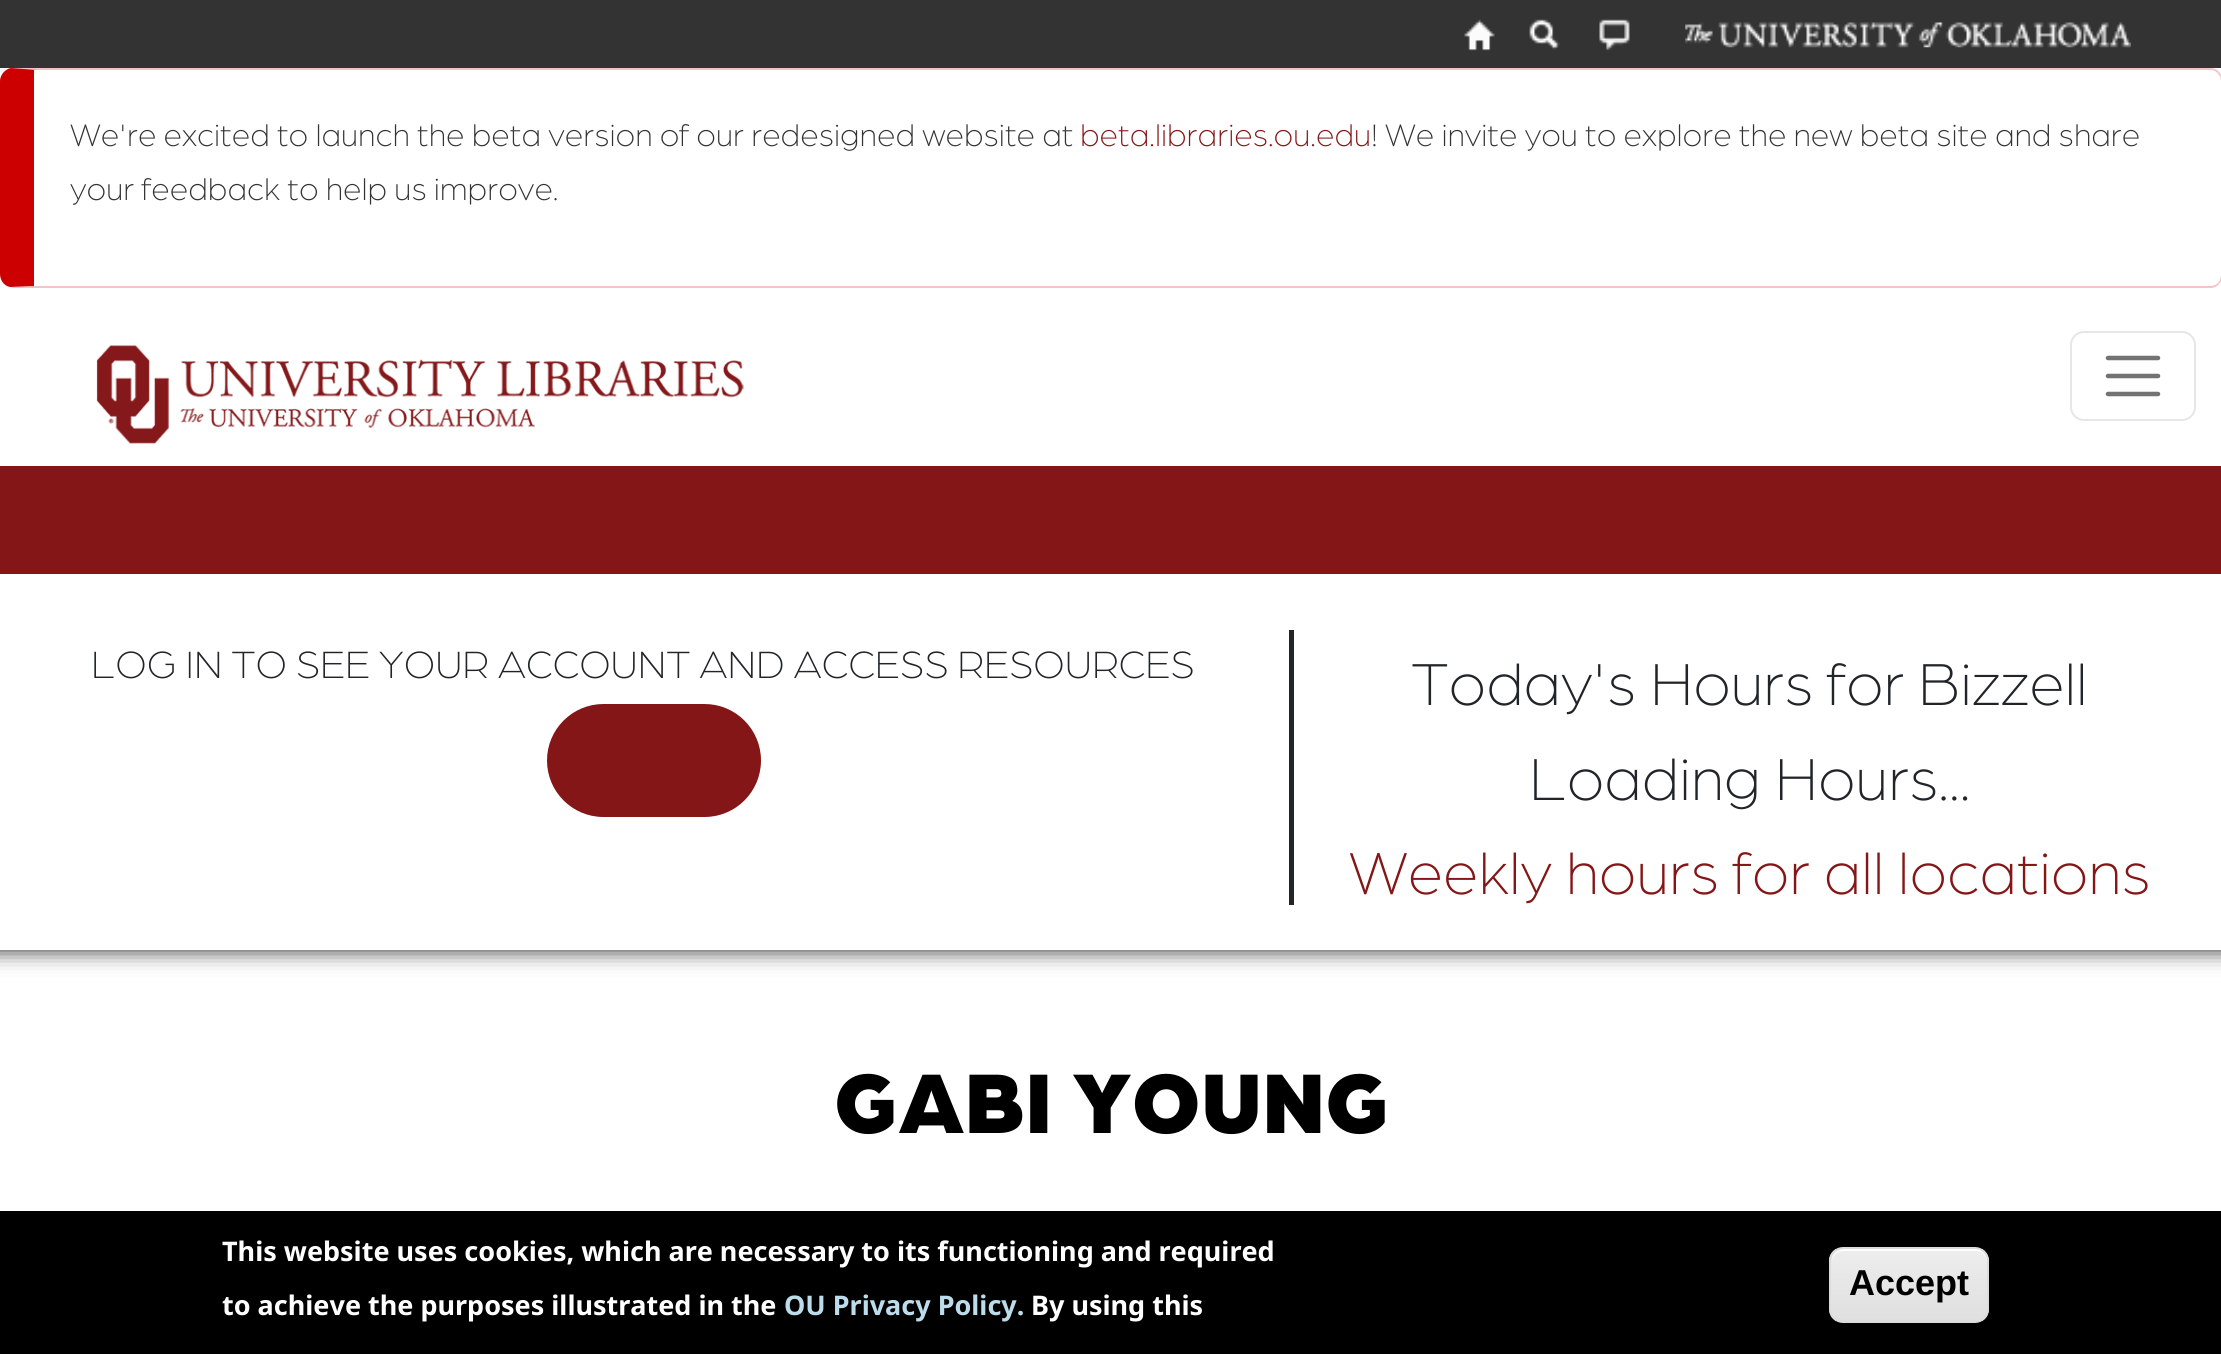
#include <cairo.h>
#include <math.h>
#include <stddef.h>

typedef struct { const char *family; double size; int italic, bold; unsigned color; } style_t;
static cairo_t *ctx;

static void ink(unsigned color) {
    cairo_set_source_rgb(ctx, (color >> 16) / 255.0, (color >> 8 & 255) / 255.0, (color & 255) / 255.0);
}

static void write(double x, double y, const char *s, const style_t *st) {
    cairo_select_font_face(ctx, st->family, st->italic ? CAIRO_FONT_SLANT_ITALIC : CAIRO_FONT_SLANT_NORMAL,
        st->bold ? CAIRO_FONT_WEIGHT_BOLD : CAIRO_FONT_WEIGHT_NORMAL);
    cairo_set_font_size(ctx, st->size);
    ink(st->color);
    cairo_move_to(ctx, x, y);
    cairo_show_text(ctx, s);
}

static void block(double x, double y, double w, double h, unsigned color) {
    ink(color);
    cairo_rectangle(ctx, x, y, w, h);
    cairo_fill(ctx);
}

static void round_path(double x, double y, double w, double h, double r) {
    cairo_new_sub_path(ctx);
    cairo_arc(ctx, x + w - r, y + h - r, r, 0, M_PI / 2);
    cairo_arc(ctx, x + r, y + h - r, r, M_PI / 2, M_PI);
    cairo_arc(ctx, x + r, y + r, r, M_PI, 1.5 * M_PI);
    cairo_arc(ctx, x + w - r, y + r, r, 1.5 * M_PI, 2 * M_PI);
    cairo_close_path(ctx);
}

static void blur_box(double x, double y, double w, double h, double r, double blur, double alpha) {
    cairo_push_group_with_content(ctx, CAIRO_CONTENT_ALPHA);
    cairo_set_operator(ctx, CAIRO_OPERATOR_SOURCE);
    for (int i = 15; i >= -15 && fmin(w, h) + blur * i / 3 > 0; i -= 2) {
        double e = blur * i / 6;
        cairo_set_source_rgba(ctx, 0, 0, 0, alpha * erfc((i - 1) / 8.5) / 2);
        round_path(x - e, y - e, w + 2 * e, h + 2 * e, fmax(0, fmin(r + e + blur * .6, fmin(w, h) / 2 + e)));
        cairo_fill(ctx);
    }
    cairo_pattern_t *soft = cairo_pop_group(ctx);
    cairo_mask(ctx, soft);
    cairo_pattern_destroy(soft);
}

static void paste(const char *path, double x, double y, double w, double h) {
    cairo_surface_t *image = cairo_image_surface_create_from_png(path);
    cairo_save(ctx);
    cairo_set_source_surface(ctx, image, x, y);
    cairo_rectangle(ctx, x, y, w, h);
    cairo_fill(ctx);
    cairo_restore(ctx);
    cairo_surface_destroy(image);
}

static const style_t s1 = {"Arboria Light", 33, 0, 0, 0x333333};
static const style_t s2 = {"Arboria Light", 33, 0, 0, 0x841617};
static const style_t s3 = {"Arboria Light", 40.5, 0, 0, 0x212529};
static const style_t s4 = {"Arboria Light", 63, 0, 0, 0x212529};
static const style_t s5 = {"Arboria Light", 63, 0, 0, 0x841617};
static const style_t s6 = {"Arboria Black", 90, 0, 0, 0x000000};
static const style_t s7 = {"Noto Sans", 27, 0, 1, 0xffffff};
static const style_t s8 = {"Noto Sans", 27, 0, 1, 0xbcdceb};
static const style_t s9 = {"Liberation Sans", 36, 0, 1, 0x000000};

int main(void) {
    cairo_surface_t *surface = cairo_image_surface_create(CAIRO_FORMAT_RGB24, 2221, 1354);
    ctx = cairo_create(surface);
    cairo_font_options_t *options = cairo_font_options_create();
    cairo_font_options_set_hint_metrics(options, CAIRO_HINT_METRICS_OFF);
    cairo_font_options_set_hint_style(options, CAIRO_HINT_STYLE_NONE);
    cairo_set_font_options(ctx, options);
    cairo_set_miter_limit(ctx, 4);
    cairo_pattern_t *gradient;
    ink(0xffffff);
    cairo_paint(ctx);
    block(0, 0, 2221, 68, 0x333333);
    paste("pic1.png", 1464, 19, 31, 32);
    paste("pic2.png", 1529, 19, 31, 31);
    paste("pic3.png", 1599, 19, 31, 32);
    paste("pic4.png", 1685, 22, 446, 26);
    ink(0xf5c2c7);
    cairo_new_path(ctx);
    cairo_move_to(ctx, 14, 68);
    cairo_line_to(ctx, 11, 68);
    cairo_line_to(ctx, 37, 70);
    cairo_line_to(ctx, 2210, 70);
    cairo_curve_to(ctx, 2213, 70, 2216, 71, 2217, 73);
    cairo_line_to(ctx, 2219, 72);
    cairo_curve_to(ctx, 2217, 69, 2213, 68, 2210, 68);
    cairo_close_path(ctx);
    cairo_fill(ctx);
    cairo_new_path(ctx);
    cairo_move_to(ctx, 2219, 72);
    cairo_curve_to(ctx, 2221, 74, 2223, 77, 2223, 81);
    cairo_line_to(ctx, 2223, 274);
    cairo_curve_to(ctx, 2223, 278, 2221, 282, 2219, 284);
    cairo_line_to(ctx, 2218, 283);
    cairo_curve_to(ctx, 2220, 281, 2221, 278, 2221, 274);
    cairo_line_to(ctx, 2221, 81);
    cairo_curve_to(ctx, 2221, 78, 2220, 75, 2217, 73);
    cairo_close_path(ctx);
    cairo_fill(ctx);
    cairo_new_path(ctx);
    cairo_move_to(ctx, 14, 288);
    cairo_line_to(ctx, 2210, 288);
    cairo_curve_to(ctx, 2213, 288, 2217, 287, 2219, 284);
    cairo_line_to(ctx, 2218, 283);
    cairo_curve_to(ctx, 2216, 285, 2213, 286, 2210, 286);
    cairo_line_to(ctx, 34, 286);
    cairo_line_to(ctx, 10, 287);
    cairo_close_path(ctx);
    cairo_fill(ctx);
    ink(0xcc0000);
    cairo_new_path(ctx);
    cairo_move_to(ctx, 34, 70);
    cairo_line_to(ctx, 37, 70);
    cairo_line_to(ctx, 11, 68);
    cairo_curve_to(ctx, 5, 69, 0, 75, 0, 81);
    cairo_line_to(ctx, 0, 274);
    cairo_curve_to(ctx, 0, 280, 4, 286, 10, 287);
    cairo_line_to(ctx, 34, 286);
    cairo_close_path(ctx);
    cairo_fill(ctx);
    write(70, 146, "We're excited to launch the beta version of our redesigned website at", &s1);
    write(1080, 146, "beta.libraries.ou.edu", &s2);
    write(1371, 146, "! We invite you to explore the new beta site and share", &s1);
    write(70, 200, "your feedback to help us improve.", &s1);
    paste("pic5.png", 96, 345, 648, 99);
    round_path(2071, 332, 124, 88, 13);
    ink(0xe6e6e6);
    cairo_stroke(ctx);
    cairo_new_path(ctx);
    cairo_move_to(ctx, 2108, 358);
    cairo_line_to(ctx, 2158, 358);
    cairo_move_to(ctx, 2108, 376);
    cairo_line_to(ctx, 2158, 376);
    cairo_move_to(ctx, 2108, 394);
    cairo_line_to(ctx, 2158, 394);
    ink(0x737373);
    cairo_set_line_width(ctx, 4.5);
    cairo_set_line_cap(ctx, CAIRO_LINE_CAP_ROUND);
    cairo_stroke(ctx);
    block(0, 466, 2221, 108, 0x841617);
    cairo_save(ctx);
    cairo_set_fill_rule(ctx, CAIRO_FILL_RULE_EVEN_ODD);
    cairo_new_path(ctx);
    cairo_move_to(ctx, 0, 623);
    cairo_line_to(ctx, 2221, 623);
    cairo_line_to(ctx, 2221, 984);
    cairo_line_to(ctx, 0, 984);
    cairo_close_path(ctx);
    cairo_move_to(ctx, -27, 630);
    cairo_line_to(ctx, 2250, 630);
    cairo_line_to(ctx, 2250, 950);
    cairo_line_to(ctx, -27, 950);
    cairo_close_path(ctx);
    cairo_clip(ctx);
    ink(0x222222);
    blur_box(-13, 657, 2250, 293, 0, 11, 1);
    cairo_restore(ctx);
    block(1289, 630, 5, 275, 0x212529);
    write(91, 678, "LOG IN TO SEE YOUR ACCOUNT AND ACCESS RESOURCES", &s3);
    ink(0x841617);
    round_path(547, 704, 214, 113, 56.5);
    cairo_fill(ctx);
    write(1411, 705, "Today's Hours for Bizzell", &s4);
    write(1529, 800, "Loading Hours...", &s4);
    write(1349, 894, "Weekly hours for all locations", &s5);
    write(834, 1133, "GABI YOUNG", &s6);
    block(0, 1211, 2221, 143, 0x000000);
    write(222, 1261, "This website uses cookies, which are necessary to its functioning and required", &s7);
    write(222, 1315, "to achieve the purposes illustrated in the", &s7);
    write(784, 1315, "OU Privacy Policy.", &s8);
    write(1031, 1315, "By using this", &s7);
    cairo_save(ctx);
    round_path(1829, 1247, 160, 76, 14);
    cairo_clip(ctx);
    gradient = cairo_pattern_create_linear(1909, 1249, 1909, 1321);
    cairo_pattern_add_color_stop_rgba(gradient, 0.05, 0.929, 0.929, 0.929, 1);
    cairo_pattern_add_color_stop_rgba(gradient, 1, 0.875, 0.875, 0.875, 1);
    cairo_set_source(ctx, gradient);
    cairo_pattern_destroy(gradient);
    cairo_rectangle(ctx, 1829, 1249, 160, 72);
    cairo_fill(ctx);
    cairo_restore(ctx);
    cairo_new_path(ctx);
    cairo_move_to(ctx, 1843, 1251);
    cairo_line_to(ctx, 1976, 1251);
    cairo_curve_to(ctx, 1982, 1251, 1987, 1256, 1987, 1262);
    cairo_curve_to(ctx, 1987, 1244, 1966, 1249, 1954, 1249);
    cairo_line_to(ctx, 1865, 1249);
    cairo_curve_to(ctx, 1853, 1249, 1832, 1244, 1832, 1262);
    cairo_curve_to(ctx, 1832, 1256, 1837, 1251, 1843, 1251);
    cairo_close_path(ctx);
    cairo_fill(ctx);
    round_path(1830, 1248, 158, 74, 13);
    ink(0xdcdcdc);
    cairo_set_line_width(ctx, 2);
    cairo_set_line_cap(ctx, CAIRO_LINE_CAP_BUTT);
    cairo_stroke(ctx);
    write(1849, 1295, "Accept", &s9);
    cairo_surface_write_to_png(surface, "screenshot.png");
    cairo_font_options_destroy(options);
    cairo_destroy(ctx);
    cairo_surface_destroy(surface);
    return 0;
}
